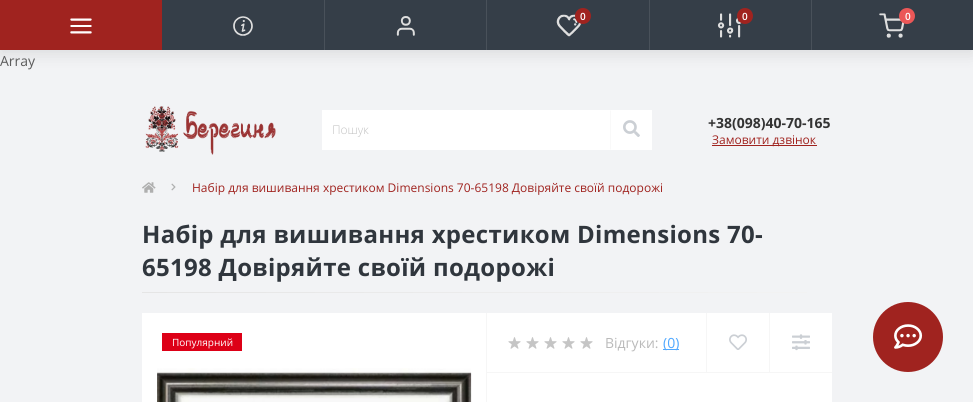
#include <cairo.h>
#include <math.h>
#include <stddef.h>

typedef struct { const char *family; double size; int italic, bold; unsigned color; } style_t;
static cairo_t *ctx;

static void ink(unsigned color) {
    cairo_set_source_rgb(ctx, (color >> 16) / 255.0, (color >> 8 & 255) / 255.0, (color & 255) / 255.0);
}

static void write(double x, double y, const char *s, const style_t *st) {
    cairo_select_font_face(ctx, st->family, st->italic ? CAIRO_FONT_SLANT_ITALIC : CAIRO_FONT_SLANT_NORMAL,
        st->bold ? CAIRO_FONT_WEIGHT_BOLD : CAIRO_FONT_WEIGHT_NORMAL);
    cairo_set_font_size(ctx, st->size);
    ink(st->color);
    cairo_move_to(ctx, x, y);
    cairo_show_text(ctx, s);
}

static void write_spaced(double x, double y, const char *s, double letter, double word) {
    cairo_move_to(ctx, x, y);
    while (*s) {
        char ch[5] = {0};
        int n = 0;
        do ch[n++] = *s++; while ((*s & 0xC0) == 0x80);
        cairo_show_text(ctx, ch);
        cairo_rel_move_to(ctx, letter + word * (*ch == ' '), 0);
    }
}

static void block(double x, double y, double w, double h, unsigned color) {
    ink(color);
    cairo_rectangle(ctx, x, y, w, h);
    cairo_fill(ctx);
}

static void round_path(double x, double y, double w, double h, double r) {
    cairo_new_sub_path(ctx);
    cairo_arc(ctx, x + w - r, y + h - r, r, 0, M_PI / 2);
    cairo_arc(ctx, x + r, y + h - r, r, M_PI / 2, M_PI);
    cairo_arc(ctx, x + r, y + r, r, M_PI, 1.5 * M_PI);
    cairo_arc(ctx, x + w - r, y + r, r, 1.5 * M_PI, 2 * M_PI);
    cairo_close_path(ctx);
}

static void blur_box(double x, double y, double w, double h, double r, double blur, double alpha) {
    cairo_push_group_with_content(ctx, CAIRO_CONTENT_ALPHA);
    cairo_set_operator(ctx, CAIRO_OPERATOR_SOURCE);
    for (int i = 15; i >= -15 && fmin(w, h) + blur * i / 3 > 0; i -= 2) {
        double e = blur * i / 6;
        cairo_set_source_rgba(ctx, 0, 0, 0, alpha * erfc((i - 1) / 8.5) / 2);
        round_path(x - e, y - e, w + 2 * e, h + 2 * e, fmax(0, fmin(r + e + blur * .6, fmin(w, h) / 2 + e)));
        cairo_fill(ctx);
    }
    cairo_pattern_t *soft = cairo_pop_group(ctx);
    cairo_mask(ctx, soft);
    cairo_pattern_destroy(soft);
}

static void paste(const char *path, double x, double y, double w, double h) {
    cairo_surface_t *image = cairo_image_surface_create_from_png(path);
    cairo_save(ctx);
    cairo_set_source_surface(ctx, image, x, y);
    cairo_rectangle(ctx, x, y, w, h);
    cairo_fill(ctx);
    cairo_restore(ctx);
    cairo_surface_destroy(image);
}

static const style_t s1 = {"Open Sans SemiBold", 10, 0, 0, 0xffffff};
static const style_t s2 = {"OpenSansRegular", 14, 0, 0, 0x5c5c5c};
static const style_t s3 = {"Open Sans Light", 12, 0, 0, 0xc2c2c2};
static const style_t s4 = {"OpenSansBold", 14, 0, 1, 0x333333};
static const style_t s5 = {"OpenSansRegular", 12, 0, 0, 0xa0231f};
static const style_t s6 = {"OpenSansRegular", 10, 0, 0, 0xffffff};
static const style_t s7 = {"OpenSansRegular", 14, 0, 0, 0xbababa};
static const style_t s8 = {"OpenSansRegular", 14, 0, 0, 0x50a8ff};

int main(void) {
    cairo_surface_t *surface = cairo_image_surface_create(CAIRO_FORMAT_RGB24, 973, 402);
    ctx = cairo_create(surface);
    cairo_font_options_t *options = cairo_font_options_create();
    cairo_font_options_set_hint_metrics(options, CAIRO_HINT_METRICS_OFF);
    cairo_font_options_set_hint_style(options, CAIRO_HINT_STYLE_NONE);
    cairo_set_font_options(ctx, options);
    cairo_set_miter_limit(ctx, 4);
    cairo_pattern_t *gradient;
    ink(0xf2f3f5);
    cairo_paint(ctx);
    ink(0x000000);
    blur_box(0, 4, 973, 50, 0, 7.5, 0.1);
    block(162, 0, 811, 50, 0x353e48);
    block(0, 0, 162, 50, 0xa0231f);
    paste("pic1.png", 70, 18, 22, 16);
    paste("pic2.png", 233, 16, 20, 20);
    block(324, 0, 1, 50, 0x49515a);
    paste("pic3.png", 396, 16, 19, 20);
    block(486, 0, 1, 50, 0x49515a);
    paste("pic4.png", 556, 14, 26, 23);
    ink(0xa0231f);
    cairo_arc(ctx, 583, 16, 8, 0, 2 * M_PI);
    cairo_fill(ctx);
    write(580, 20, "0", &s1);
    block(649, 0, 1, 50, 0x49515a);
    paste("pic5.png", 717, 13, 25, 25);
    ink(0xa0231f);
    cairo_arc(ctx, 745, 16, 8, 0, 2 * M_PI);
    cairo_fill(ctx);
    write(742, 20, "0", &s1);
    block(811, 0, 1, 50, 0x49515a);
    paste("pic6.png", 879, 13, 26, 25);
    ink(0xeb5757);
    cairo_arc(ctx, 907, 16, 8, 0, 2 * M_PI);
    cairo_fill(ctx);
    write(905, 20, "0", &s1);
    write(0, 66, "Array", &s2);
    paste("pic7.png", 145, 106, 131, 49);
    block(322, 110, 330, 40, 0xffffff);
    write(332, 134, "Пошук", &s3);
    ink(0xf9f9f9);
    cairo_new_path(ctx);
    cairo_move_to(ctx, 610, 150);
    cairo_line_to(ctx, 610, 110);
    cairo_line_to(ctx, 611, 111);
    cairo_line_to(ctx, 611, 149);
    cairo_close_path(ctx);
    cairo_fill(ctx);
    paste("pic8.png", 623, 120, 17, 17);
    write(708, 128, "+38(098)40-70-165", &s4);
    block(712, 145, 105, 1, 0xa0231f);
    write(712, 144, "Замовити дзвінок", &s5);
    paste("pic9.png", 142, 182, 14, 11);
    paste("pic10.png", 171, 183, 5, 8);
    write(192, 192, "Набір для вишивання хрестиком Dimensions 70-65198 Довіряйте своїй подорожі", &s5);
    cairo_select_font_face(ctx, "OpenSansBold", CAIRO_FONT_SLANT_NORMAL, CAIRO_FONT_WEIGHT_BOLD);
    cairo_set_font_size(ctx, 24);
    ink(0x30363d);
    write_spaced(142, 243, "Набір для вишивання хрестиком Dimensions 70-", 0.3, 0);
    write_spaced(142, 276, "65198 Довіряйте своїй подорожі", 0.3, 0);
    gradient = cairo_pattern_create_linear(142, 293, 832, 292);
    cairo_pattern_add_color_stop_rgba(gradient, 0, 0.898, 0.898, 0.898, 1);
    cairo_pattern_add_color_stop_rgba(gradient, 1, 0.953, 0.953, 0.953, 1);
    cairo_set_source(ctx, gradient);
    cairo_pattern_destroy(gradient);
    cairo_rectangle(ctx, 142, 292, 665, 1);
    cairo_fill(ctx);
    block(142, 313, 690, 89, 0xffffff);
    block(486, 313, 1, 89, 0xf6f6f6);
    block(162, 333, 80, 18, 0xdd0017);
    write(172, 346, "Популярний", &s6);
    paste("pic11.png", 157, 368, 315, 34);
    block(487, 372, 345, 1, 0xf6f6f6);
    paste("pic12.png", 508, 337, 13, 12);
    paste("pic12.png", 526, 337, 13, 12);
    paste("pic12.png", 544, 337, 13, 12);
    paste("pic12.png", 562, 337, 13, 12);
    paste("pic12.png", 580, 337, 13, 12);
    write(605, 348, "Відгуки:", &s7);
    block(663, 349, 16, 1, 0x50a8ff);
    write(663, 348, "(0)", &s8);
    block(706, 313, 1, 59, 0xf6f6f6);
    paste("pic13.png", 729, 334, 18, 16);
    block(769, 313, 1, 59, 0xf6f6f6);
    paste("pic14.png", 792, 334, 18, 17);
    ink(0xa0231f);
    cairo_arc(ctx, 908, 337, 35, 0, 2 * M_PI);
    cairo_fill(ctx);
    paste("pic15.png", 894, 324, 29, 25);
    cairo_surface_write_to_png(surface, "screenshot.png");
    cairo_font_options_destroy(options);
    cairo_destroy(ctx);
    cairo_surface_destroy(surface);
    return 0;
}
